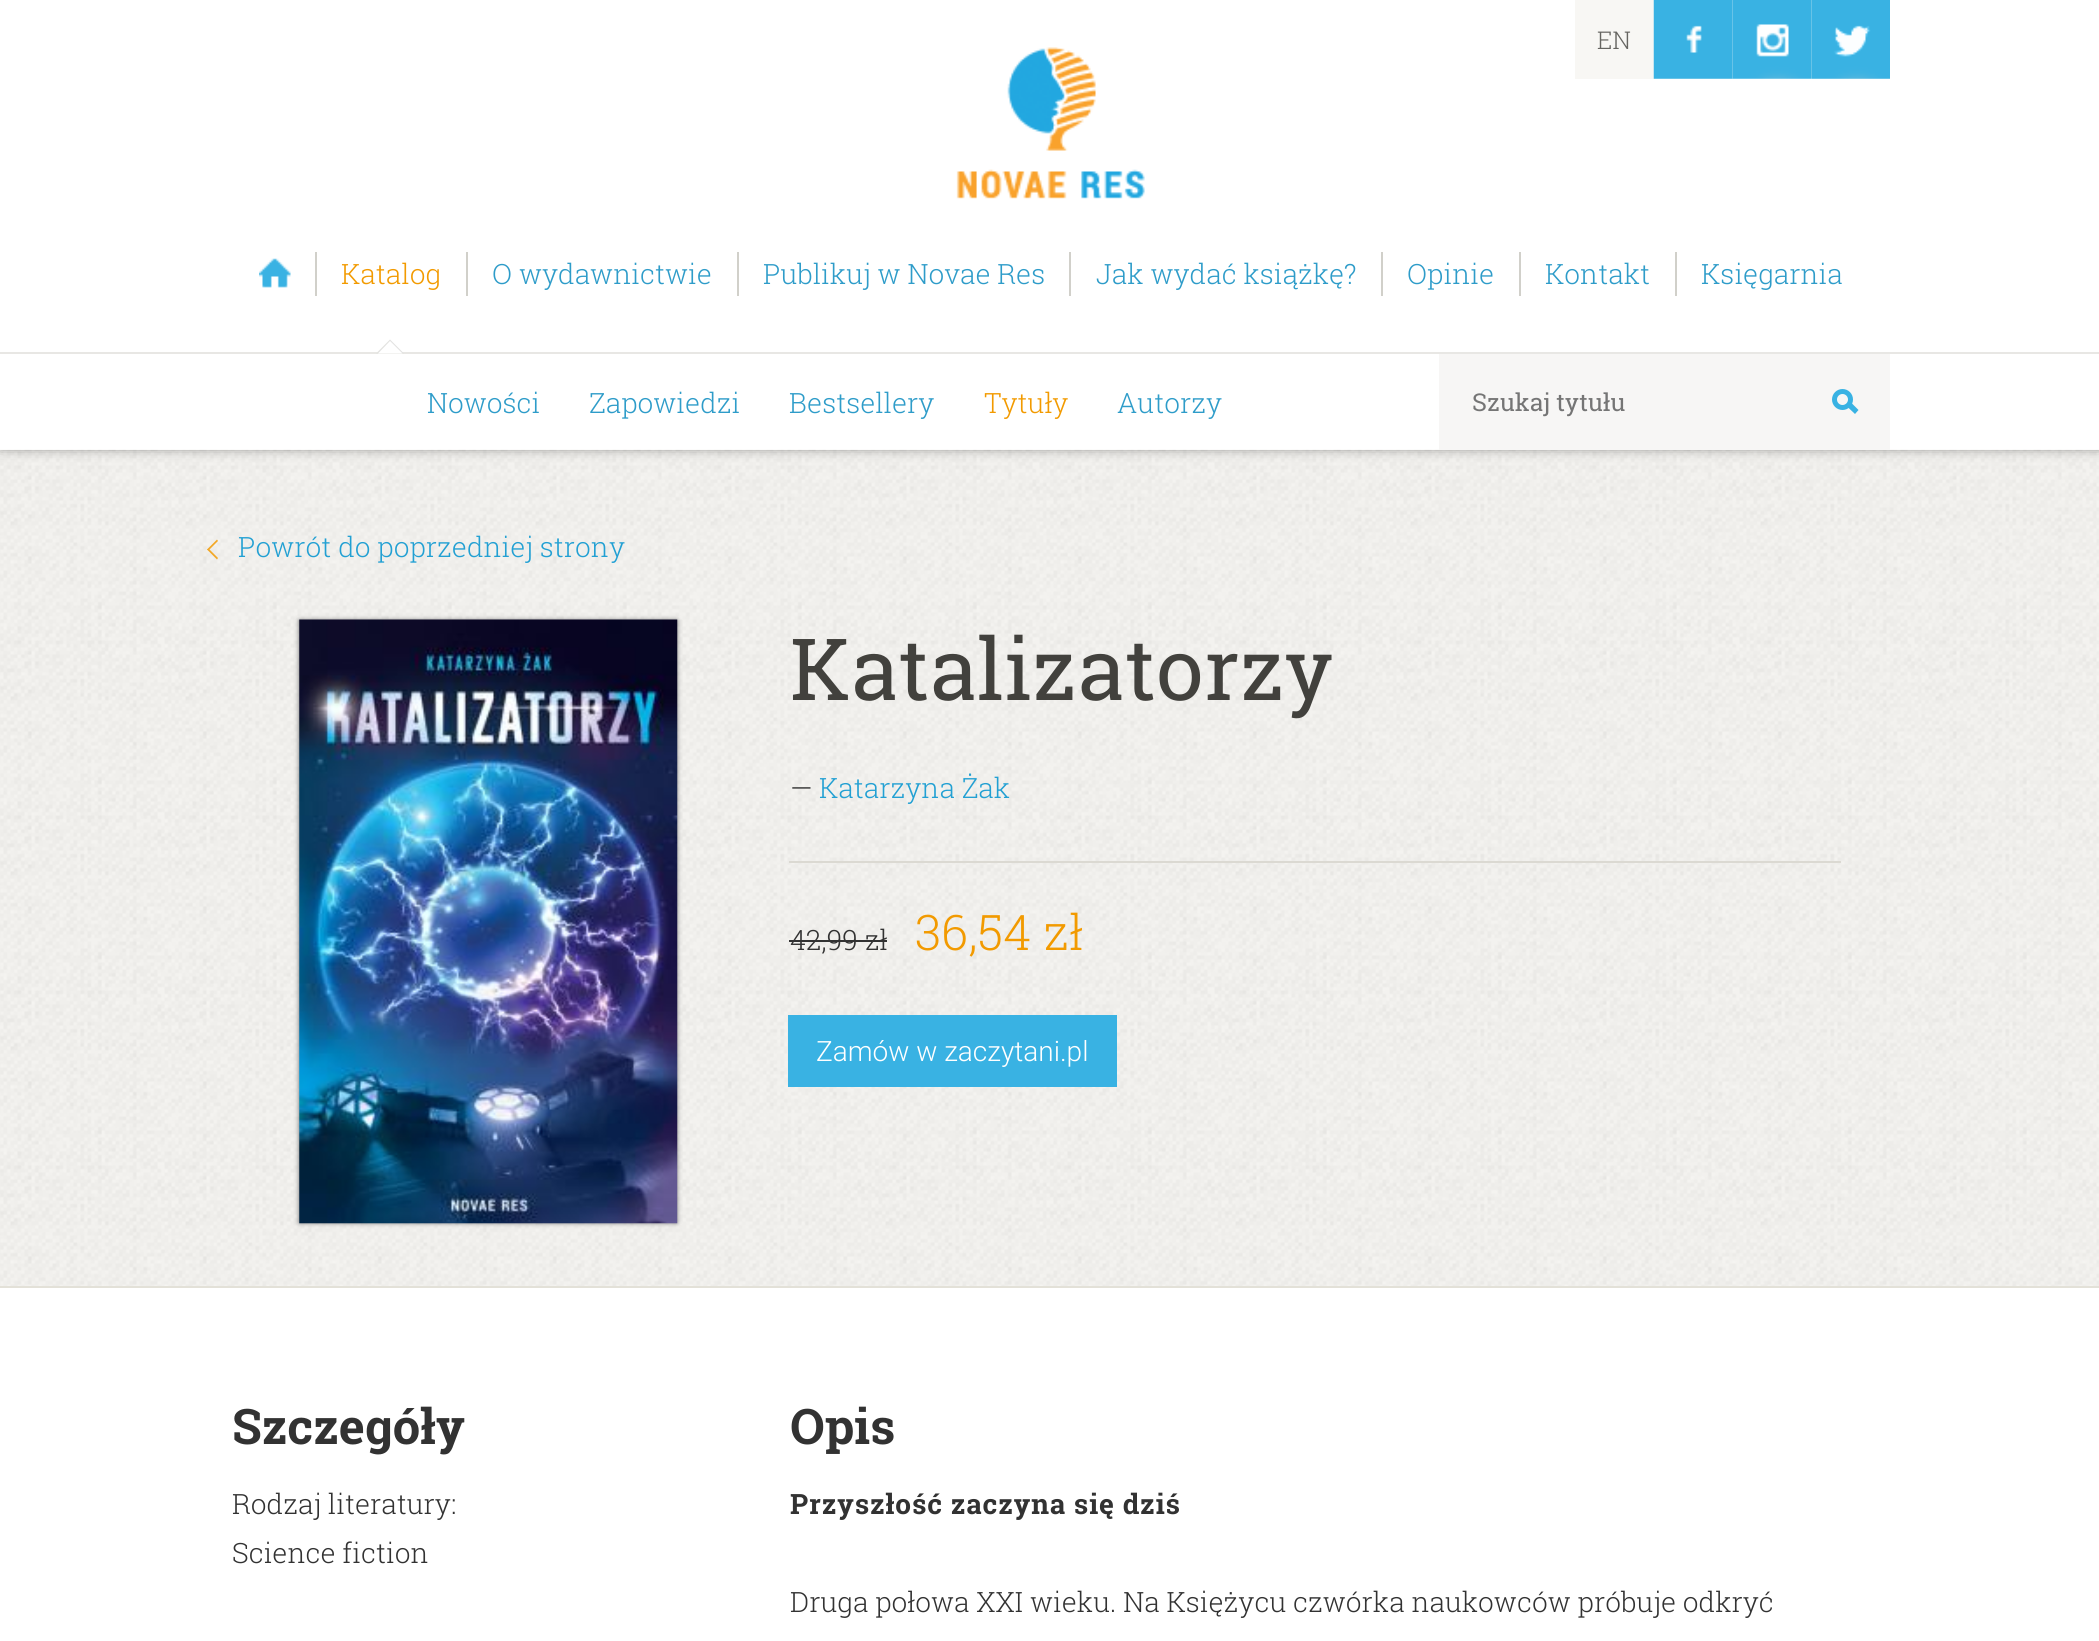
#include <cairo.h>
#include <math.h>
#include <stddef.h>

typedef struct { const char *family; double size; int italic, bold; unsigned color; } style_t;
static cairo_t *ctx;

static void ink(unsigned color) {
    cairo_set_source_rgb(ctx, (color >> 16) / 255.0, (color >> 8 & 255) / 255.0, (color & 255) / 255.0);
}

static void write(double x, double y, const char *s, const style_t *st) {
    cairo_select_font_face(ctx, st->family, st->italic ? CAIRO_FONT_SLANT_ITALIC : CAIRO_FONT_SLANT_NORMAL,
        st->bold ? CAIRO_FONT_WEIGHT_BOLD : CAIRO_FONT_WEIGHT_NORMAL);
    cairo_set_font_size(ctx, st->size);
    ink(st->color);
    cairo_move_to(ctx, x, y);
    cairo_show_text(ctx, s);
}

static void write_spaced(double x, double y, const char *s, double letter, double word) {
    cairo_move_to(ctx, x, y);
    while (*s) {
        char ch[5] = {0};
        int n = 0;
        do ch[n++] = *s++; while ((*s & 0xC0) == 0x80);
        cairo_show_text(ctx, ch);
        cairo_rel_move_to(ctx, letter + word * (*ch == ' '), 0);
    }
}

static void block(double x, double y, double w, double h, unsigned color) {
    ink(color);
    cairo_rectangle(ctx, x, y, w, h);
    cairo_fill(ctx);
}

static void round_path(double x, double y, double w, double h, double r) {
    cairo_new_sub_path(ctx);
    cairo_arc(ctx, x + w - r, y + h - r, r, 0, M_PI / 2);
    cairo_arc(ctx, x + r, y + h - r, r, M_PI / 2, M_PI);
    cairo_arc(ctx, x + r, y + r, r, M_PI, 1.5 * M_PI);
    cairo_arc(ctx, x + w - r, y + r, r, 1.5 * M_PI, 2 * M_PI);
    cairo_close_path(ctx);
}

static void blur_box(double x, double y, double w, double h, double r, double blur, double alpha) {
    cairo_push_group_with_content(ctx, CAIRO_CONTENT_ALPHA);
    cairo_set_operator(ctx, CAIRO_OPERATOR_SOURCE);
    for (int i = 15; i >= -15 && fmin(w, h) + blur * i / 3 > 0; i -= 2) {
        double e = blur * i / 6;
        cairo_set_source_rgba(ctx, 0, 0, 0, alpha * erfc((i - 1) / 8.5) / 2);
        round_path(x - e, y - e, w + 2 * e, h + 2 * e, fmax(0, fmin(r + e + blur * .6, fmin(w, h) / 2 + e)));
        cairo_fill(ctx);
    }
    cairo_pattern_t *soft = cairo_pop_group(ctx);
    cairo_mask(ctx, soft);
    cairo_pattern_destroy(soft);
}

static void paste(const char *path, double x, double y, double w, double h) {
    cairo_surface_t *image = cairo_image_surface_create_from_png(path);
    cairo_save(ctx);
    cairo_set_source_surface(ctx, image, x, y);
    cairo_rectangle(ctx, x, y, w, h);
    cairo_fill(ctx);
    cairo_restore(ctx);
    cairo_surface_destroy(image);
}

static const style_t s1 = {"Roboto Slab Light", 24.5, 0, 0, 0x666561};
static const style_t s2 = {"Roboto Slab Light", 28, 0, 0, 0xf29a00};
static const style_t s3 = {"Roboto Slab Light", 28, 0, 0, 0x2e9cc9};
static const style_t s4 = {"Roboto Slab", 24.5, 0, 0, 0x757575};
static const style_t s5 = {"Roboto Slab Light", 28, 0, 0, 0x22a0d3};
static const style_t s6 = {"Roboto Slab", 85.75, 0, 0, 0x42413d};
static const style_t s7 = {"Roboto Slab Light", 28, 0, 0, 0x323232};
static const style_t s8 = {"Roboto Slab Light", 49, 0, 0, 0xf29a00};
static const style_t s9 = {"Roboto Light", 28, 0, 0, 0xffffff};
static const style_t s10 = {"Roboto Slab", 49, 0, 1, 0x323232};

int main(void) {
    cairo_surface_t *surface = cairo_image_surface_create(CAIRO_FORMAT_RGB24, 2099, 1641);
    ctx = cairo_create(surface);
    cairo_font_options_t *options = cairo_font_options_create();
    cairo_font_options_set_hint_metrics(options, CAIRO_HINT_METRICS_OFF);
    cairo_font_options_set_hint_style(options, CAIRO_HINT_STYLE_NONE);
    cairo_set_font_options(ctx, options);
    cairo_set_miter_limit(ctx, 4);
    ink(0xffffff);
    cairo_paint(ctx);
    paste("pic6.png", 0, 449, 2099, 837);
    cairo_save(ctx);
    cairo_set_fill_rule(ctx, CAIRO_FILL_RULE_EVEN_ODD);
    cairo_new_path(ctx);
    cairo_move_to(ctx, 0, 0);
    cairo_line_to(ctx, 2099, 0);
    cairo_line_to(ctx, 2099, 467);
    cairo_line_to(ctx, 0, 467);
    cairo_close_path(ctx);
    cairo_move_to(ctx, 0, 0);
    cairo_line_to(ctx, 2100, 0);
    cairo_line_to(ctx, 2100, 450);
    cairo_line_to(ctx, 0, 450);
    cairo_close_path(ctx);
    cairo_clip(ctx);
    ink(0x000000);
    blur_box(0, -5, 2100, 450, 0, 7, 0.75);
    cairo_restore(ctx);
    block(1575, 0, 158, 79, 0xf8f7f4);
    write(1597, 49, "EN", &s1);
    paste("pic1.png", 1653, 0, 80, 79);
    paste("pic2.png", 1732, 0, 79, 79);
    block(1811, 0, 79, 79, 0xf8f7f4);
    paste("pic3.png", 1811, 0, 79, 79);
    paste("pic4.png", 956, 47, 189, 152);
    paste("pic5.png", 259, 258, 32, 30);
    block(315, 252, 2, 44, 0xd1d0ca);
    write(341, 284, "Katalog", &s2);
    block(0, 352, 2099, 2, 0xe8e7e4);
    ink(0xe2e2e0);
    cairo_new_path(ctx);
    cairo_move_to(ctx, 404, 353.5);
    cairo_line_to(ctx, 376, 353.5);
    cairo_line_to(ctx, 390, 339.5);
    cairo_close_path(ctx);
    cairo_fill(ctx);
    ink(0xffffff);
    cairo_new_path(ctx);
    cairo_move_to(ctx, 402.5, 353.5);
    cairo_line_to(ctx, 378, 353.5);
    cairo_line_to(ctx, 390, 341);
    cairo_close_path(ctx);
    cairo_fill(ctx);
    block(466, 252, 2, 44, 0xd1d0ca);
    write(492, 284, "O wydawnictwie", &s3);
    block(737, 252, 2, 44, 0xd1d0ca);
    write(763, 284, "Publikuj w Novae Res", &s3);
    block(1069, 252, 2, 44, 0xd1d0ca);
    write(1096, 284, "Jak wydać książkę?", &s3);
    block(1381, 252, 2, 44, 0xd1d0ca);
    write(1407, 284, "Opinie", &s3);
    block(1519, 252, 2, 44, 0xd1d0ca);
    write(1545, 284, "Kontakt", &s3);
    block(1675, 252, 2, 44, 0xd1d0ca);
    write(1701, 284, "Księgarnia", &s3);
    write(427, 413, "Nowości", &s3);
    write(589, 413, "Zapowiedzi", &s3);
    write(789, 413, "Bestsellery", &s3);
    write(984, 413, "Tytuły", &s2);
    write(1117, 413, "Autorzy", &s3);
    block(1439, 354, 451, 96, 0xf7f6f5);
    write(1472, 411, "Szukaj tytułu", &s4);
    cairo_new_path(ctx);
    cairo_arc(ctx, 1842.5, 399.5, 8, 0, 2 * M_PI);
    ink(0x39b2e3);
    cairo_set_line_width(ctx, 5);
    cairo_stroke(ctx);
    cairo_new_path(ctx);
    cairo_move_to(ctx, 1846, 405.5);
    cairo_line_to(ctx, 1850, 401.5);
    cairo_line_to(ctx, 1858.5, 410);
    cairo_line_to(ctx, 1855, 414);
    cairo_close_path(ctx);
    cairo_fill(ctx);
    block(0, 1286, 2099, 2, 0xe3e1d8);
    ink(0xf2a828);
    cairo_new_path(ctx);
    cairo_move_to(ctx, 217, 559.5);
    cairo_line_to(ctx, 207, 549.5);
    cairo_line_to(ctx, 208.5, 548.5);
    cairo_line_to(ctx, 218, 558);
    cairo_close_path(ctx);
    cairo_fill(ctx);
    cairo_new_path(ctx);
    cairo_move_to(ctx, 208.5, 550.5);
    cairo_line_to(ctx, 207, 549.5);
    cairo_line_to(ctx, 217, 539.5);
    cairo_line_to(ctx, 218, 541);
    cairo_close_path(ctx);
    cairo_fill(ctx);
    write(238, 557, "Powrót do poprzedniej strony", &s5);
    ink(0x777777);
    blur_box(299, 620, 378, 603, 0, 2.5, 1);
    paste("pic7.png", 299, 619, 379, 605);
    write(790, 700, "Katalizatorzy", &s6);
    write(790, 798, "—", &s7);
    write(819, 798, "Katarzyna Żak", &s5);
    block(789, 861, 1052, 2, 0xdbd9d2);
    write(790, 950, "42,99 zł", &s7);
    block(789, 940, 98, 2, 0x323232);
    write(915, 950, "36,54 zł", &s8);
    block(790, 1017, 325, 68, 0x39b2e3);
    cairo_rectangle(ctx, 789, 1016, 327, 70);
    cairo_set_line_width(ctx, 2);
    cairo_stroke(ctx);
    write(816, 1061, "Zamów w zaczytani.pl", &s9);
    write(232, 1444, "Szczegóły", &s10);
    write(232, 1514, "Rodzaj literatury:", &s7);
    write(232, 1563, "Science fiction", &s7);
    write(790, 1444, "Opis", &s10);
    cairo_set_font_size(ctx, 28);
    write_spaced(790, 1514, "Przyszłość zaczyna się dziś", 0.9, 0);
    write(790, 1612, "Druga połowa XXI wieku. Na Księżycu czwórka naukowców próbuje odkryć", &s7);
    cairo_surface_write_to_png(surface, "screenshot.png");
    cairo_font_options_destroy(options);
    cairo_destroy(ctx);
    cairo_surface_destroy(surface);
    return 0;
}
